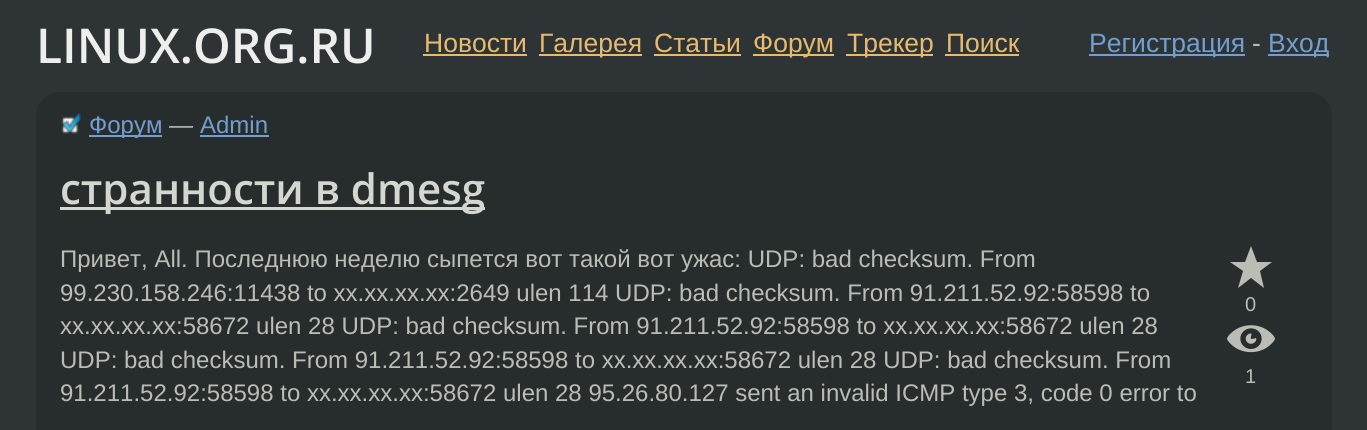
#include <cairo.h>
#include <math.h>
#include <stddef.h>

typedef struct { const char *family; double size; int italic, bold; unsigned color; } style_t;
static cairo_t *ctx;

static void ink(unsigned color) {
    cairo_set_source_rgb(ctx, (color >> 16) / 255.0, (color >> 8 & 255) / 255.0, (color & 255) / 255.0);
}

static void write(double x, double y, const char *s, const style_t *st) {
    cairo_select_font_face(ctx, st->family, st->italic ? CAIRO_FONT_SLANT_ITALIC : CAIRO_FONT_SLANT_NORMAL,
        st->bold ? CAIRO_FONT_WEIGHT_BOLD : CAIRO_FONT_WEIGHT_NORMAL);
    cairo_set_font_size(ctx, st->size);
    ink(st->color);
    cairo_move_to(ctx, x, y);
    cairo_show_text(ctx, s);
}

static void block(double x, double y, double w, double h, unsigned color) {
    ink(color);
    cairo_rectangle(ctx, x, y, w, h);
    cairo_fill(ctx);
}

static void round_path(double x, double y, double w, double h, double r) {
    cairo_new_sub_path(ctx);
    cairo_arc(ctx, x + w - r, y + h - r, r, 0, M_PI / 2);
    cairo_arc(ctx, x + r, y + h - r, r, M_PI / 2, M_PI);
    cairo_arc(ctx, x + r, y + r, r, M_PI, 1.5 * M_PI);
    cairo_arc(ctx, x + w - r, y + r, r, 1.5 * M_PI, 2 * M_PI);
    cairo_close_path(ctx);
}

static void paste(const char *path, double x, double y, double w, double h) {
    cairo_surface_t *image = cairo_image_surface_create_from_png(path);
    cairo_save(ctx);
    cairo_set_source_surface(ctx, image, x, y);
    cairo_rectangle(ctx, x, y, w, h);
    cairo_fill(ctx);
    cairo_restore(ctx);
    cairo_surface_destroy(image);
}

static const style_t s1 = {"Open Sans SemiBold", 48, 0, 0, 0xeeeeec};
static const style_t s2 = {"Liberation Sans", 26.5, 0, 0, 0xe9b96e};
static const style_t s3 = {"Liberation Sans", 26.5, 0, 0, 0x729fcf};
static const style_t s4 = {"Liberation Sans", 26.5, 0, 0, 0xbabdb6};
static const style_t s5 = {"Liberation Sans", 24, 0, 0, 0x729fcf};
static const style_t s6 = {"Liberation Sans", 24, 0, 0, 0xbabdb6};
static const style_t s7 = {"Open Sans SemiBold", 42, 0, 0, 0xd3d7cf};
static const style_t s8 = {"Liberation Sans", 20, 0, 0, 0xbabdb6};

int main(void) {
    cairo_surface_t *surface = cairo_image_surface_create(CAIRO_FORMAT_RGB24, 1367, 430);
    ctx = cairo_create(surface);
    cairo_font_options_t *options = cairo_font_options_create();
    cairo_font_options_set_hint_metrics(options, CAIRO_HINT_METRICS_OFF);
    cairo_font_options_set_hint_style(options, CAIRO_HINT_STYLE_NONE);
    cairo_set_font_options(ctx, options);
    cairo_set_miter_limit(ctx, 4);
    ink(0x2e3436);
    cairo_paint(ctx);
    write(36, 63, "LINUX.ORG.RU", &s1);
    write(424, 52, "Новости", &s2);
    block(423, 54, 104, 2, 0xe9b96e);
    block(539, 54, 103, 2, 0xe9b96e);
    write(539, 52, "Галерея", &s2);
    write(654, 52, "Статьи", &s2);
    block(654, 54, 87, 2, 0xe9b96e);
    block(753, 54, 81, 2, 0xe9b96e);
    write(753, 52, "Форум", &s2);
    block(846, 54, 87, 2, 0xe9b96e);
    write(847, 52, "Трекер", &s2);
    write(946, 52, "Поиск", &s2);
    block(945, 54, 74, 2, 0xe9b96e);
    block(1089, 54, 156, 2, 0x729fcf);
    write(1089, 52, "Регистрация", &s3);
    write(1252, 52, "-", &s4);
    block(1268, 54, 61, 2, 0x729fcf);
    write(1268, 52, "Вход", &s3);
    ink(0x272c2d);
    round_path(36, 92, 1296, 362, 24);
    cairo_fill(ctx);
    paste("pic1.png", 61, 111, 21, 23);
    block(89, 135, 73, 2, 0x729fcf);
    write(89, 133, "Форум", &s5);
    write(169, 133, "—", &s6);
    write(200, 133, "Admin", &s5);
    block(200, 135, 69, 2, 0x729fcf);
    block(60, 207, 425, 3, 0xd3d7cf);
    write(60, 204, "странности в dmesg", &s7);
    write(60, 267, "Привет, All. Последнюю неделю сыпется вот такой вот ужас: UDP: bad checksum. From", &s6);
    write(60, 301, "99.230.158.246:11438 to xx.xx.xx.xx:2649 ulen 114 UDP: bad checksum. From 91.211.52.92:58598 to", &s6);
    write(60, 334, "xx.xx.xx.xx:58672 ulen 28 UDP: bad checksum. From 91.211.52.92:58598 to xx.xx.xx.xx:58672 ulen 28", &s6);
    write(60, 368, "UDP: bad checksum. From 91.211.52.92:58598 to xx.xx.xx.xx:58672 ulen 28 UDP: bad checksum. From", &s6);
    write(60, 401, "91.211.52.92:58598 to xx.xx.xx.xx:58672 ulen 28 95.26.80.127 sent an invalid ICMP type 3, code 0 error to", &s6);
    cairo_new_path(ctx);
    cairo_move_to(ctx, 1251, 246);
    cairo_line_to(ctx, 1257, 262);
    cairo_line_to(ctx, 1272, 262);
    cairo_line_to(ctx, 1260, 271);
    cairo_line_to(ctx, 1264, 288);
    cairo_line_to(ctx, 1251, 278);
    cairo_line_to(ctx, 1238, 288);
    cairo_line_to(ctx, 1243, 271);
    cairo_line_to(ctx, 1230, 262);
    cairo_line_to(ctx, 1245, 262);
    cairo_close_path(ctx);
    cairo_fill(ctx);
    write(1245, 311, "0", &s8);
    paste("pic2.png", 1227, 325, 48, 28);
    write(1245, 383, "1", &s8);
    cairo_surface_write_to_png(surface, "screenshot.png");
    cairo_font_options_destroy(options);
    cairo_destroy(ctx);
    cairo_surface_destroy(surface);
    return 0;
}
